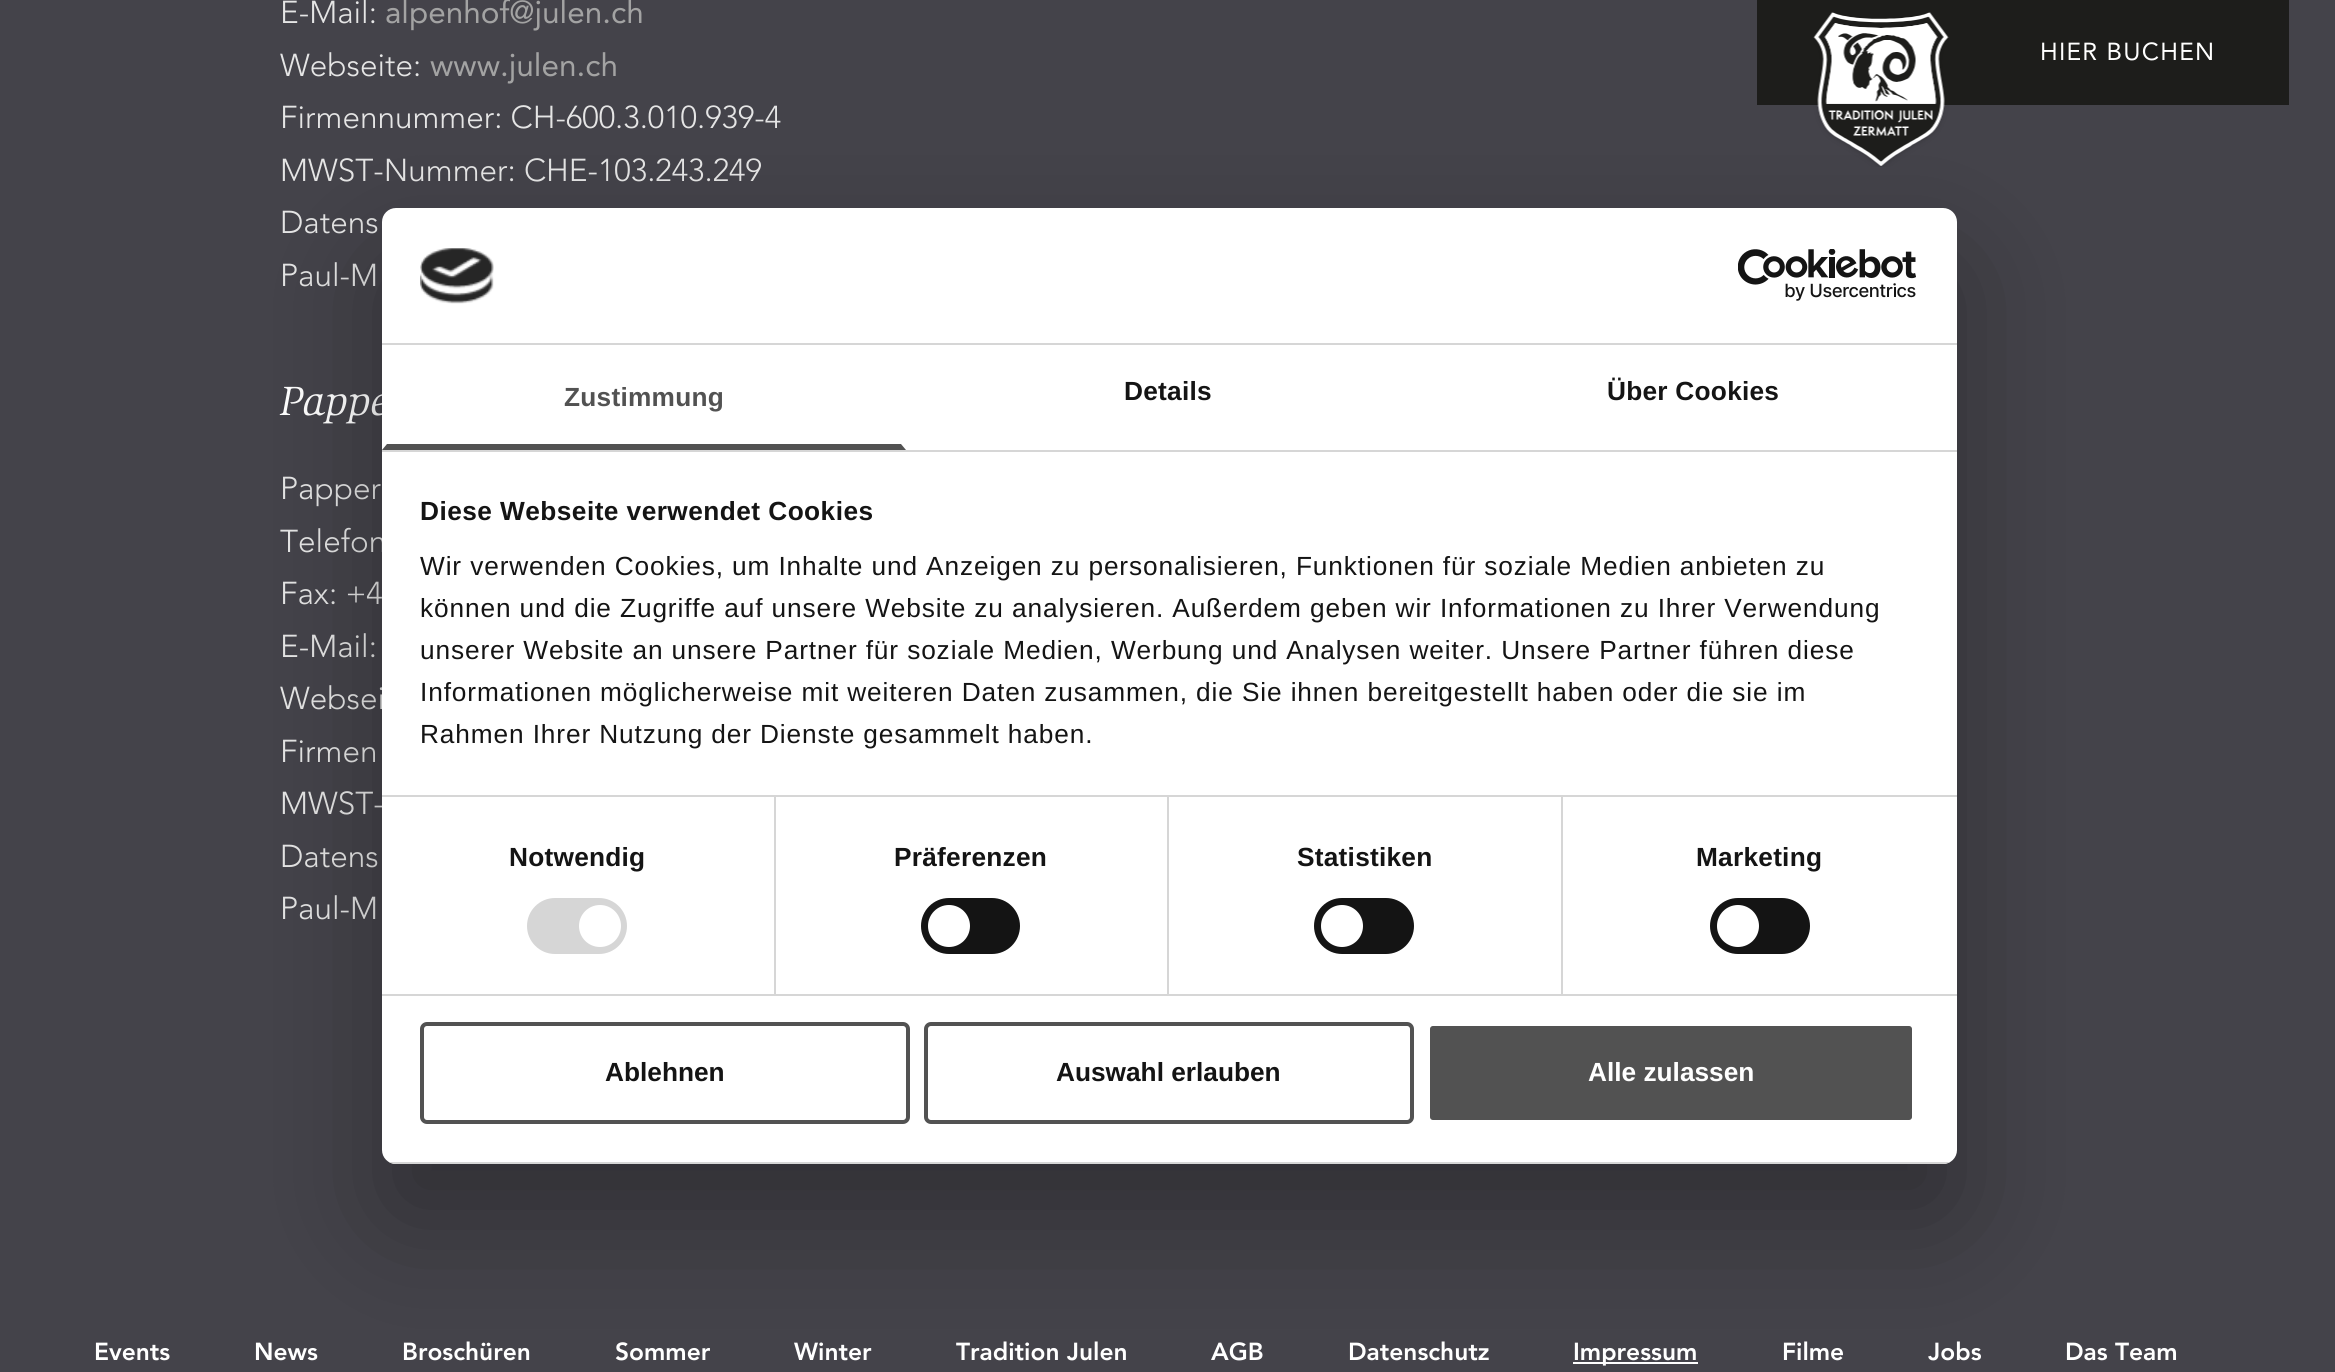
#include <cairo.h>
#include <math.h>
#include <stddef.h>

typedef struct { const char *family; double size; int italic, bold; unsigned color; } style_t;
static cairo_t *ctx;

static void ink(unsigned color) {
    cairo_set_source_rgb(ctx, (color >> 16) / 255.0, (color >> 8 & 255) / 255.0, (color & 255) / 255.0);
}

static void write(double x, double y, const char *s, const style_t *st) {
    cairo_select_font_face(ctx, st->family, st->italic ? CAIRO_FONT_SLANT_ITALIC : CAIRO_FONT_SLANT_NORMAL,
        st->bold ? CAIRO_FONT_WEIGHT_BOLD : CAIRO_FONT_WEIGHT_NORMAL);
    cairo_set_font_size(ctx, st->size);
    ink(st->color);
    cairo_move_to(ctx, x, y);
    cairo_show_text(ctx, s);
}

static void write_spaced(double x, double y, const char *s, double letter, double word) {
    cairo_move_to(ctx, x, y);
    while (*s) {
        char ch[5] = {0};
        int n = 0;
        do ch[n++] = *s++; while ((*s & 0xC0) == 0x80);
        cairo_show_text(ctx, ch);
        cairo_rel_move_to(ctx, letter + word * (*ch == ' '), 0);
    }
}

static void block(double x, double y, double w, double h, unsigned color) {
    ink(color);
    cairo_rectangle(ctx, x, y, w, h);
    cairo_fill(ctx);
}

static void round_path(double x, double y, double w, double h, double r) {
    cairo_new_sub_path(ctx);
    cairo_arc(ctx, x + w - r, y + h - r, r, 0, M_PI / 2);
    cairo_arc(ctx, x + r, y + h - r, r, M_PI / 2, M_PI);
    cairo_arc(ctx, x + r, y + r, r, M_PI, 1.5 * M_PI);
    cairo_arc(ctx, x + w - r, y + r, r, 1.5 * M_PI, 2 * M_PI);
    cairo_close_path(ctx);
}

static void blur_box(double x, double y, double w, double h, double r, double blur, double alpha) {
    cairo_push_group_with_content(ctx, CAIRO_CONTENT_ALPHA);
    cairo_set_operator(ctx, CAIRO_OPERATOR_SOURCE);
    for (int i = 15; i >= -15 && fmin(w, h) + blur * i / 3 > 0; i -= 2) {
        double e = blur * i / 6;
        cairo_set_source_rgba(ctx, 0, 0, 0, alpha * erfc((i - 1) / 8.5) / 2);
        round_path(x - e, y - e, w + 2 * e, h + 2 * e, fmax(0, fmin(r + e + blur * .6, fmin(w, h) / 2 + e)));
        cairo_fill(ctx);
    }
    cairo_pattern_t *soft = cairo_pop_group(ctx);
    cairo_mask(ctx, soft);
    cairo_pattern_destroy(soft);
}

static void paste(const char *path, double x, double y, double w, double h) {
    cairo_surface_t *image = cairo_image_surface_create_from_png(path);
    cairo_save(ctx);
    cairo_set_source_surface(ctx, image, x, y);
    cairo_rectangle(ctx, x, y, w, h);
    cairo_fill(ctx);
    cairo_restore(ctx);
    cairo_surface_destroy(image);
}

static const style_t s1 = {"Avenir Light", 31.5, 0, 0, 0xe5e5e5};
static const style_t s2 = {"Avenir", 31.5, 0, 0, 0xa3a3a3};
static const style_t s3 = {"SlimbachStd", 42, 0, 0, 0xffffff};
static const style_t s4 = {"Liberation Sans", 26.25, 0, 1, 0x141414};
static const style_t s5 = {"Liberation Sans", 26.25, 0, 1, 0xffffff};
static const style_t s6 = {"Avenir Black", 24.5, 0, 0, 0xffffff};

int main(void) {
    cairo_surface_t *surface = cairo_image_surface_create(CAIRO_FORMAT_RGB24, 2335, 1372);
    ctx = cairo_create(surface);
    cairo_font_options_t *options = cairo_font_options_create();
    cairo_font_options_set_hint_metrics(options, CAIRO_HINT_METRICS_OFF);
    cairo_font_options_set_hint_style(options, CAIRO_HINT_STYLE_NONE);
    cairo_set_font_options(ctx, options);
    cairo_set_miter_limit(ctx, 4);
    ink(0x44434a);
    cairo_paint(ctx);
    write(280, 23, "E-Mail:", &s1);
    write(385, 23, "alpenhof@julen.ch", &s2);
    write(280, 76, "Webseite:", &s1);
    write(430, 76, "www.julen.ch", &s2);
    write(280, 128, "Firmennummer: CH-600.3.010.939-4", &s1);
    write(280, 181, "MWST-Nummer: CHE-103.243.249", &s1);
    write(280, 233, "Datens", &s1);
    write(280, 286, "Paul-M", &s1);
    write(280, 415, "Pappe", &s3);
    write(280, 499, "Papper", &s1);
    write(280, 552, "Telefon", &s1);
    write(280, 604, "Fax: +4", &s1);
    write(280, 657, "E-Mail:", &s1);
    write(280, 709, "Websei", &s1);
    write(280, 762, "Firmen", &s1);
    write(280, 814, "MWST-", &s1);
    write(280, 867, "Datens", &s1);
    write(280, 919, "Paul-M", &s1);
    block(1757, 0, 532, 105, 0x1d1d1b);
    paste("pic1.png", 1813, 12, 136, 155);
    cairo_select_font_face(ctx, "Avenir", CAIRO_FONT_SLANT_NORMAL, CAIRO_FONT_WEIGHT_NORMAL);
    cairo_set_font_size(ctx, 24.5);
    ink(0xffffff);
    write_spaced(2040, 60, "HIER BUCHEN", 1.25, 0);
    block(1573, 1362, 125, 2, 0xffffff);
    ink(0x000000);
    blur_box(382, 264, 1575, 956, 14, 59.5, 0.3);
    ink(0xffffff);
    round_path(382, 208, 1575, 956, 14);
    cairo_fill(ctx);
    block(382, 343, 1575, 2, 0xd6d6d6);
    paste("pic2.png", 420, 248, 74, 56);
    paste("pic3.png", 1738, 249, 178, 52);
    block(382, 450, 1575, 2, 0xd6d6d6);
    ink(0x525252);
    cairo_new_path(ctx);
    cairo_move_to(ctx, 906, 450);
    cairo_line_to(ctx, 382, 450);
    cairo_line_to(ctx, 387, 444);
    cairo_line_to(ctx, 901, 444);
    cairo_close_path(ctx);
    cairo_fill(ctx);
    cairo_select_font_face(ctx, "Liberation Sans", CAIRO_FONT_SLANT_NORMAL, CAIRO_FONT_WEIGHT_BOLD);
    cairo_set_font_size(ctx, 26.25);
    write_spaced(564, 406, "Zustimmung", 0.25, 0);
    ink(0x141414);
    write_spaced(1124, 400, "Details", 0.25, 0);
    write_spaced(1607, 400, "Über Cookies", 0.25, 0);
    block(774, 796, 2, 198, 0xd6d6d6);
    block(1167, 796, 2, 198, 0xd6d6d6);
    block(1561, 796, 2, 198, 0xd6d6d6);
    block(382, 795, 1575, 2, 0xd6d6d6);
    ink(0x141414);
    write_spaced(420, 520, "Diese Webseite verwendet Cookies", 0.45, 0);
    cairo_select_font_face(ctx, "Liberation Sans", CAIRO_FONT_SLANT_NORMAL, CAIRO_FONT_WEIGHT_NORMAL);
    write_spaced(420, 575, "Wir verwenden Cookies, um Inhalte und Anzeigen zu personalisieren, Funktionen für soziale Medien anbieten zu", 0.88, 0);
    write_spaced(420, 617, "können und die Zugriffe auf unsere Website zu analysieren. Außerdem geben wir Informationen zu Ihrer Verwendung", 0.88, 0);
    write_spaced(420, 659, "unserer Website an unsere Partner für soziale Medien, Werbung und Analysen weiter. Unsere Partner führen diese", 0.88, 0);
    write_spaced(420, 701, "Informationen möglicherweise mit weiteren Daten zusammen, die Sie ihnen bereitgestellt haben oder die sie im", 0.88, 0);
    write_spaced(420, 743, "Rahmen Ihrer Nutzung der Dienste gesammelt haben.", 0.88, 0);
    block(382, 994, 1575, 2, 0xd6d6d6);
    cairo_select_font_face(ctx, "Liberation Sans", CAIRO_FONT_SLANT_NORMAL, CAIRO_FONT_WEIGHT_BOLD);
    ink(0x141414);
    write_spaced(509, 866, "Notwendig", 0.25, 0);
    ink(0xd6d6d6);
    round_path(527, 898, 100, 56, 28);
    cairo_fill(ctx);
    ink(0xffffff);
    cairo_arc(ctx, 600, 926, 21, 0, 2 * M_PI);
    cairo_fill(ctx);
    ink(0x141414);
    write_spaced(894, 866, "Präferenzen", 0.25, 0);
    round_path(921, 898, 99, 56, 28);
    cairo_fill(ctx);
    ink(0xffffff);
    cairo_arc(ctx, 949, 926, 21, 0, 2 * M_PI);
    cairo_fill(ctx);
    ink(0x141414);
    write_spaced(1297, 866, "Statistiken", 0.25, 0);
    round_path(1314, 898, 100, 56, 28);
    cairo_fill(ctx);
    ink(0xffffff);
    cairo_arc(ctx, 1342, 926, 21, 0, 2 * M_PI);
    cairo_fill(ctx);
    ink(0x141414);
    write_spaced(1696, 866, "Marketing", 0.25, 0);
    round_path(1710, 898, 100, 56, 28);
    cairo_fill(ctx);
    ink(0xffffff);
    cairo_arc(ctx, 1738, 926, 21, 0, 2 * M_PI);
    cairo_fill(ctx);
    cairo_save(ctx);
    round_path(382, 208, 1575, 956, 14);
    cairo_clip(ctx);
    block(382, 1162, 1575, 2, 0xd6d6d6);
    cairo_restore(ctx);
    round_path(422, 1024, 486, 98, 5);
    ink(0x525252);
    cairo_set_line_width(ctx, 4);
    cairo_stroke(ctx);
    write(605, 1081, "Ablehnen", &s4);
    round_path(926, 1024, 486, 98, 5);
    ink(0x525252);
    cairo_stroke(ctx);
    write(1056, 1081, "Auswahl erlauben", &s4);
    ink(0x525252);
    round_path(1428, 1024, 486, 98, 5);
    cairo_fill_preserve(ctx);
    ink(0xffffff);
    cairo_stroke(ctx);
    write(1588, 1081, "Alle zulassen", &s5);
    write(94, 1360, "Events", &s6);
    write(254, 1360, "News", &s6);
    write(402, 1360, "Broschüren", &s6);
    write(615, 1360, "Sommer", &s6);
    write(794, 1360, "Winter", &s6);
    write(956, 1360, "Tradition Julen", &s6);
    write(1211, 1360, "AGB", &s6);
    write(1348, 1360, "Datenschutz", &s6);
    write(1573, 1360, "Impressum", &s6);
    write(1782, 1360, "Filme", &s6);
    write(1928, 1360, "Jobs", &s6);
    write(2065, 1360, "Das Team", &s6);
    cairo_surface_write_to_png(surface, "screenshot.png");
    cairo_font_options_destroy(options);
    cairo_destroy(ctx);
    cairo_surface_destroy(surface);
    return 0;
}
